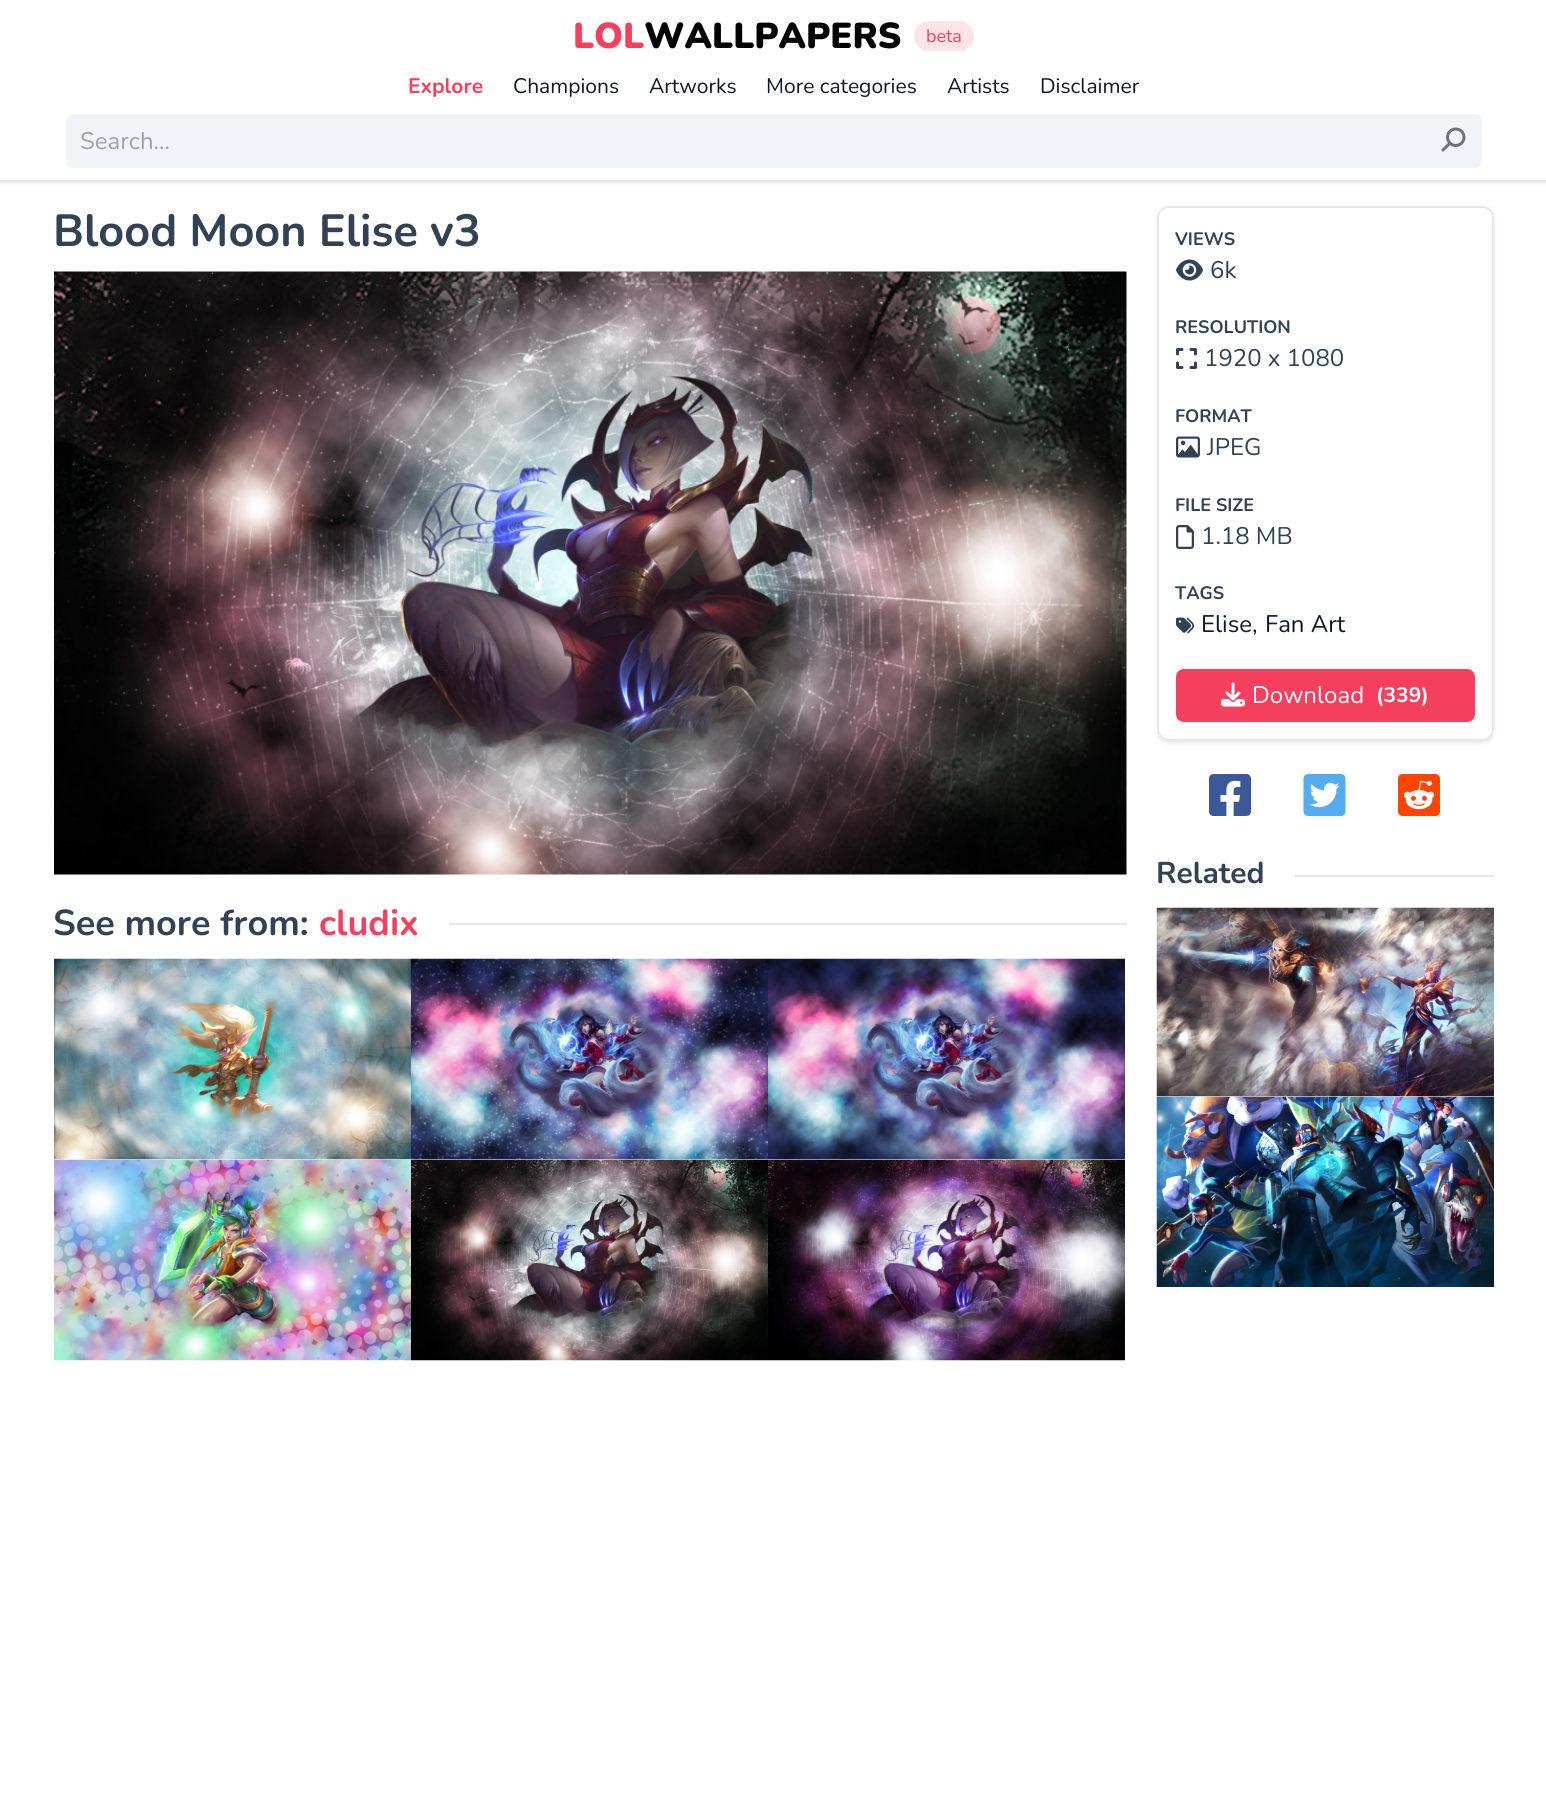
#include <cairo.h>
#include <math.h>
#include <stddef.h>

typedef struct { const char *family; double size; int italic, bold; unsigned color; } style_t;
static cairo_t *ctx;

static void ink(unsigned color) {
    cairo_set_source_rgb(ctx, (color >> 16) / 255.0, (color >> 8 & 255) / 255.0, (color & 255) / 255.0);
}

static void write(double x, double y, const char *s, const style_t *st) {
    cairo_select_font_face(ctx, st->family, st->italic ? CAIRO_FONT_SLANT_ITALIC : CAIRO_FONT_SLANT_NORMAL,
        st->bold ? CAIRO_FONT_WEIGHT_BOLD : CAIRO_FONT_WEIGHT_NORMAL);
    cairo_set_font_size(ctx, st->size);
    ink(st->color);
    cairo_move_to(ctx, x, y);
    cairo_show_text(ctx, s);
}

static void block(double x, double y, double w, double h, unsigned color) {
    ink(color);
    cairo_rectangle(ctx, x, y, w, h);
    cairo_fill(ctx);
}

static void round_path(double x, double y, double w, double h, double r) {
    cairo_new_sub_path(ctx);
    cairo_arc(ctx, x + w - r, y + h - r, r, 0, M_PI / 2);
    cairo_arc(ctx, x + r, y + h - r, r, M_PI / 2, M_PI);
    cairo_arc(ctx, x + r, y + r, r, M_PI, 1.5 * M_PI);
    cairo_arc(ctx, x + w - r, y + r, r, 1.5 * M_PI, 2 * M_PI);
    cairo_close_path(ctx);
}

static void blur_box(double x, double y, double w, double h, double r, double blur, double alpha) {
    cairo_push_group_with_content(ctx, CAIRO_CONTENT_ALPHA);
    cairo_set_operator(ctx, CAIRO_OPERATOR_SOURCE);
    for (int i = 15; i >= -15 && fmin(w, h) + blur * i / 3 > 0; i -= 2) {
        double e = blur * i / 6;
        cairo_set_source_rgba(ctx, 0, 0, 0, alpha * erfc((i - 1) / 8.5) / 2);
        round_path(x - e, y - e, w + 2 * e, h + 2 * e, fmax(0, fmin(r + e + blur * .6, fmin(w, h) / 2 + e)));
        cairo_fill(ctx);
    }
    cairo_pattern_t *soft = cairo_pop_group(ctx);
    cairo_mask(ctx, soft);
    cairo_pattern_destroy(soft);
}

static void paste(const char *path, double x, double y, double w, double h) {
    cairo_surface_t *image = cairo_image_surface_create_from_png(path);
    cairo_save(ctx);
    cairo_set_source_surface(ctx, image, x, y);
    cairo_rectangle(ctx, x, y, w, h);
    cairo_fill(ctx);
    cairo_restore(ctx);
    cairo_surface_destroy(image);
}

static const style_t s1 = {"Nunito Black", 36, 0, 0, 0xf43f5e};
static const style_t s2 = {"Nunito Black", 36, 0, 0, 0x000000};
static const style_t s3 = {"Nunito", 18, 0, 0, 0xf43f5e};
static const style_t s4 = {"Nunito", 21, 0, 1, 0xf43f5e};
static const style_t s5 = {"Nunito", 21, 0, 0, 0x0f172a};
static const style_t s6 = {"Nunito", 24, 0, 0, 0x9ca3af};
static const style_t s7 = {"Nunito", 45, 0, 1, 0x334155};
static const style_t s8 = {"Nunito", 36, 0, 1, 0x334155};
static const style_t s9 = {"Nunito", 36, 0, 1, 0xf43f5e};
static const style_t s10 = {"Nunito", 18, 0, 1, 0x334155};
static const style_t s11 = {"Nunito", 24, 0, 0, 0x334155};
static const style_t s12 = {"Nunito", 24, 0, 0, 0x0f172a};
static const style_t s13 = {"Nunito", 24, 0, 0, 0xffffff};
static const style_t s14 = {"Nunito", 21, 0, 1, 0xffffff};
static const style_t s15 = {"Nunito", 30, 0, 1, 0x334155};

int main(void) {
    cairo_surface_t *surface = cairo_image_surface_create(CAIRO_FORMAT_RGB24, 1546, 1805);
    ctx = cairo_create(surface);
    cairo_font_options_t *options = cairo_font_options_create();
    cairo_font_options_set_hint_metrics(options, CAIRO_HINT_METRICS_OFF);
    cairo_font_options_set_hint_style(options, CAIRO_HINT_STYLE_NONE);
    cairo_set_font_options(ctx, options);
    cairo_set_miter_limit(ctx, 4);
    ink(0xffffff);
    cairo_paint(ctx);
    cairo_save(ctx);
    cairo_rectangle(ctx, 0, 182, 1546, 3);
    cairo_clip(ctx);
    ink(0x000000);
    blur_box(0, 2, 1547, 181, 0, 2, 0.1);
    cairo_restore(ctx);
    block(0, 180, 1546, 2, 0xe5e7eb);
    write(573, 48, "LOL", &s1);
    write(644, 48, "WALLPAPERS", &s2);
    ink(0xffe4e6);
    round_path(914, 21, 60, 30, 15);
    cairo_fill(ctx);
    write(926, 42, "beta", &s3);
    write(408, 93, "Explore", &s4);
    write(513, 93, "Champions", &s5);
    write(649, 93, "Artworks", &s5);
    write(766, 93, "More categories", &s5);
    write(947, 93, "Artists", &s5);
    write(1040, 93, "Disclaimer", &s5);
    ink(0xf1f5f9);
    round_path(66, 114, 1416, 54, 6);
    cairo_fill(ctx);
    write(80, 149, "Search...", &s6);
    paste("pic1.png", 1441, 127, 25, 25);
    write(53, 246, "Blood Moon Elise v3", &s7);
    paste("pic2.png", 54, 271, 1073, 604);
    write(53, 935, "See more from:", &s8);
    write(319, 935, "cludix", &s9);
    block(449, 923, 678, 2, 0xe2e8f0);
    paste("pic3.png", 54, 958, 357, 202);
    paste("pic4.png", 411, 958, 357, 202);
    paste("pic5.png", 768, 958, 357, 202);
    paste("pic6.png", 54, 1159, 357, 202);
    paste("pic7.png", 411, 1159, 357, 202);
    paste("pic8.png", 768, 1159, 357, 202);
    cairo_save(ctx);
    cairo_set_fill_rule(ctx, CAIRO_FILL_RULE_EVEN_ODD);
    cairo_new_path(ctx);
    cairo_move_to(ctx, 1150, 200);
    cairo_line_to(ctx, 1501, 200);
    cairo_line_to(ctx, 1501, 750);
    cairo_line_to(ctx, 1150, 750);
    cairo_close_path(ctx);
    cairo_move_to(ctx, 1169, 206);
    cairo_line_to(ctx, 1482, 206);
    cairo_curve_to(ctx, 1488.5, 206, 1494, 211.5, 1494, 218);
    cairo_line_to(ctx, 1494, 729);
    cairo_curve_to(ctx, 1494, 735.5, 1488.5, 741, 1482, 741);
    cairo_line_to(ctx, 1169, 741);
    cairo_curve_to(ctx, 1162.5, 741, 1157, 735.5, 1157, 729);
    cairo_line_to(ctx, 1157, 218);
    cairo_curve_to(ctx, 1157, 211.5, 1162.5, 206, 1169, 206);
    cairo_close_path(ctx);
    cairo_clip(ctx);
    ink(0x000000);
    blur_box(1157, 207, 337, 536, 12, 2, 0.1);
    cairo_restore(ctx);
    round_path(1158, 207, 335, 533, 11);
    ink(0xe5e7eb);
    cairo_stroke(ctx);
    write(1175, 245, "VIEWS", &s10);
    paste("pic9.png", 1176, 259, 27, 22);
    write(1210, 278, "6k", &s11);
    write(1175, 333, "RESOLUTION", &s10);
    paste("pic10.png", 1176, 348, 21, 21);
    write(1204, 366, "1920 x 1080", &s11);
    write(1175, 422, "FORMAT", &s10);
    paste("pic11.png", 1176, 436, 24, 22);
    write(1207, 455, "JPEG", &s11);
    write(1175, 511, "FILE SIZE", &s10);
    paste("pic12.png", 1176, 525, 18, 24);
    write(1201, 544, "1.18 MB", &s11);
    write(1175, 599, "TAGS", &s10);
    paste("pic13.png", 1176, 617, 18, 17);
    write(1201, 632, "Elise,", &s12);
    write(1265, 632, "Fan Art", &s12);
    ink(0xf43f5e);
    round_path(1176, 669, 299, 53, 8);
    cairo_fill(ctx);
    paste("pic14.png", 1221, 682, 24, 25);
    write(1252, 703, "Download", &s13);
    write(1376, 702, "(339)", &s14);
    paste("pic15.png", 1209, 774, 42, 42);
    paste("pic16.png", 1303, 774, 43, 42);
    paste("pic17.png", 1398, 774, 42, 42);
    write(1156, 883, "Related", &s15);
    block(1295, 875, 199, 2, 0xe2e8f0);
    paste("pic18.png", 1156, 907, 338, 190);
    paste("pic19.png", 1156, 1096, 338, 191);
    cairo_surface_write_to_png(surface, "screenshot.png");
    cairo_font_options_destroy(options);
    cairo_destroy(ctx);
    cairo_surface_destroy(surface);
    return 0;
}
